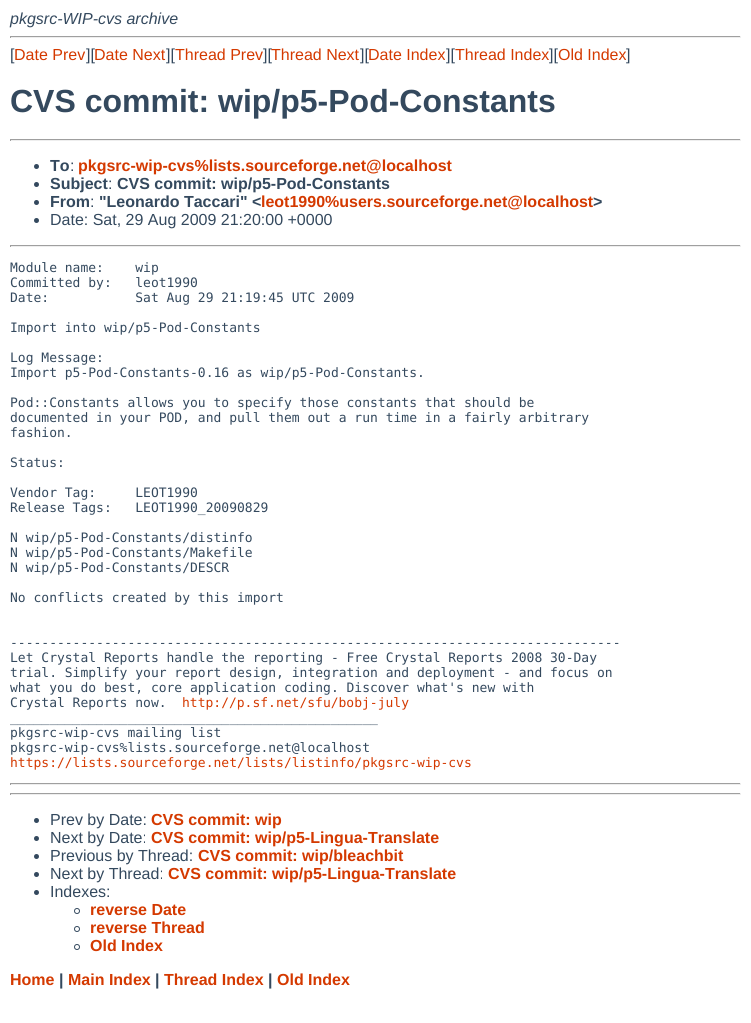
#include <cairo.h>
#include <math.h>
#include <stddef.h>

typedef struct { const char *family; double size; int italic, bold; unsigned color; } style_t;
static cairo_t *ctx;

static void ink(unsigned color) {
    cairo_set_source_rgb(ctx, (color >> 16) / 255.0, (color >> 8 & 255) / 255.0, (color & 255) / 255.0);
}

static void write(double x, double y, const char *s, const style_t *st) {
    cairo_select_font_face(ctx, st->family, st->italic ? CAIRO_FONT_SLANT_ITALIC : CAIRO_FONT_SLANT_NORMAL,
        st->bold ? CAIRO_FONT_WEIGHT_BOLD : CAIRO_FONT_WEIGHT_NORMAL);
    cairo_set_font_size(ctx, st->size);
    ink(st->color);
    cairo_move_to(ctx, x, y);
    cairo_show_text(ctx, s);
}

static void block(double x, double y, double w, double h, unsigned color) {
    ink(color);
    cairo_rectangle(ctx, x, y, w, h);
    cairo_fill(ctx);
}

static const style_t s1 = {"Liberation Sans", 16, 1, 0, 0x34495e};
static const style_t s2 = {"Liberation Sans", 16, 0, 0, 0x34495e};
static const style_t s3 = {"Liberation Sans", 16, 0, 0, 0xd43900};
static const style_t s4 = {"Liberation Sans", 32, 0, 1, 0x34495e};
static const style_t s5 = {"Liberation Sans", 16, 0, 1, 0x34495e};
static const style_t s6 = {"Liberation Sans", 16, 0, 1, 0xd43900};
static const style_t s7 = {"DejaVu Sans Mono", 13, 0, 0, 0x34495e};
static const style_t s8 = {"DejaVu Sans Mono", 13, 0, 0, 0xd43900};

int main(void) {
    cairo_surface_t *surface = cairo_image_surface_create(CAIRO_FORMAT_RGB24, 751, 1023);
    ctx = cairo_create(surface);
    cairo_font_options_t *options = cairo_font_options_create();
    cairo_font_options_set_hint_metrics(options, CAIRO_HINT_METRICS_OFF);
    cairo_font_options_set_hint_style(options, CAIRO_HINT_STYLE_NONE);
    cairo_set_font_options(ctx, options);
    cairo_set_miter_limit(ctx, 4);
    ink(0xffffff);
    cairo_paint(ctx);
    write(10, 24, "pkgsrc-WIP-cvs archive", &s1);
    block(10, 36, 731, 1, 0x9f9f9f);
    block(740, 36, 1, 2, 0xeeeeee);
    block(10, 37, 731, 1, 0xeeeeee);
    block(10, 36, 1, 2, 0x9f9f9f);
    write(10, 60, "[", &s2);
    write(14, 60, "Date Prev", &s3);
    write(86, 60, "][", &s2);
    write(94, 60, "Date Next", &s3);
    write(166, 60, "][", &s2);
    write(175, 60, "Thread Prev", &s3);
    write(263, 60, "][", &s2);
    write(271, 60, "Thread Next", &s3);
    write(360, 60, "][", &s2);
    write(368, 60, "Date Index", &s3);
    write(446, 60, "][", &s2);
    write(455, 60, "Thread Index", &s3);
    write(549, 60, "][", &s2);
    write(558, 60, "Old Index", &s3);
    write(626, 60, "]", &s2);
    write(10, 112, "CVS commit: wip/p5-Pod-Constants", &s4);
    block(10, 139, 731, 1, 0x9f9f9f);
    block(740, 139, 1, 2, 0xeeeeee);
    block(10, 140, 731, 1, 0xeeeeee);
    block(10, 139, 1, 2, 0x9f9f9f);
    ink(0x34495e);
    cairo_new_path(ctx);
    cairo_arc(ctx, 36.5, 166.5, 2.5, 0, 2 * M_PI);
    cairo_fill(ctx);
    write(50, 171, "To", &s5);
    write(70, 171, ":", &s2);
    write(78, 171, "pkgsrc-wip-cvs%lists.sourceforge.net@localhost", &s6);
    ink(0x34495e);
    cairo_new_path(ctx);
    cairo_arc(ctx, 36.5, 184.5, 2.5, 0, 2 * M_PI);
    cairo_fill(ctx);
    write(50, 189, "Subject", &s5);
    write(108, 189, ":", &s2);
    write(117, 189, "CVS commit: wip/p5-Pod-Constants", &s5);
    cairo_new_path(ctx);
    cairo_arc(ctx, 36.5, 202.5, 2.5, 0, 2 * M_PI);
    cairo_fill(ctx);
    write(50, 207, "From", &s5);
    write(90, 207, ":", &s2);
    write(99, 207, "\"Leonardo Taccari\" <", &s5);
    write(261, 207, "leot1990%users.sourceforge.net@localhost", &s6);
    write(593, 207, ">", &s5);
    cairo_new_path(ctx);
    cairo_arc(ctx, 36.5, 220.5, 2.5, 0, 2 * M_PI);
    cairo_fill(ctx);
    write(50, 225, "Date: Sat, 29 Aug 2009 21:20:00 +0000", &s2);
    block(10, 245, 731, 1, 0x9f9f9f);
    block(740, 245, 1, 2, 0xeeeeee);
    block(10, 246, 731, 1, 0xeeeeee);
    block(10, 245, 1, 2, 0x9f9f9f);
    write(10, 272, "Module name:    wip", &s7);
    write(10, 287, "Committed by:   leot1990", &s7);
    write(10, 302, "Date:           Sat Aug 29 21:19:45 UTC 2009", &s7);
    write(10, 332, "Import into wip/p5-Pod-Constants", &s7);
    write(10, 362, "Log Message:", &s7);
    write(10, 377, "Import p5-Pod-Constants-0.16 as wip/p5-Pod-Constants.", &s7);
    write(10, 407, "Pod::Constants allows you to specify those constants that should be", &s7);
    write(10, 422, "documented in your POD, and pull them out a run time in a fairly arbitrary", &s7);
    write(10, 437, "fashion.", &s7);
    write(10, 467, "Status:", &s7);
    write(10, 497, "Vendor Tag:     LEOT1990", &s7);
    write(10, 512, "Release Tags:   LEOT1990_20090829", &s7);
    write(10, 542, "N wip/p5-Pod-Constants/distinfo", &s7);
    write(10, 557, "N wip/p5-Pod-Constants/Makefile", &s7);
    write(10, 572, "N wip/p5-Pod-Constants/DESCR", &s7);
    write(10, 602, "No conflicts created by this import", &s7);
    write(10, 647, "------------------------------------------------------------------------------", &s7);
    write(10, 662, "Let Crystal Reports handle the reporting - Free Crystal Reports 2008 30-Day", &s7);
    write(10, 677, "trial. Simplify your report design, integration and deployment - and focus on", &s7);
    write(10, 692, "what you do best, core application coding. Discover what's new with", &s7);
    write(10, 707, "Crystal Reports now.", &s7);
    write(182, 707, "http://p.sf.net/sfu/bobj-july", &s8);
    write(10, 722, "_______________________________________________", &s7);
    write(10, 737, "pkgsrc-wip-cvs mailing list", &s7);
    write(10, 752, "pkgsrc-wip-cvs%lists.sourceforge.net@localhost", &s7);
    write(10, 767, "https://lists.sourceforge.net/lists/listinfo/pkgsrc-wip-cvs", &s8);
    block(10, 783, 731, 1, 0x9f9f9f);
    block(740, 783, 1, 2, 0xeeeeee);
    block(10, 784, 731, 1, 0xeeeeee);
    block(10, 783, 1, 2, 0x9f9f9f);
    block(10, 793, 731, 1, 0x9f9f9f);
    block(740, 793, 1, 2, 0xeeeeee);
    block(10, 794, 731, 1, 0xeeeeee);
    block(10, 793, 1, 2, 0x9f9f9f);
    ink(0x34495e);
    cairo_new_path(ctx);
    cairo_arc(ctx, 36.5, 820.5, 2.5, 0, 2 * M_PI);
    cairo_fill(ctx);
    write(50, 825, "Prev by Date:", &s2);
    write(151, 825, "CVS commit: wip", &s6);
    ink(0x34495e);
    cairo_new_path(ctx);
    cairo_arc(ctx, 36.5, 838.5, 2.5, 0, 2 * M_PI);
    cairo_fill(ctx);
    write(50, 843, "Next by Date:", &s2);
    write(151, 843, "CVS commit: wip/p5-Lingua-Translate", &s6);
    ink(0x34495e);
    cairo_new_path(ctx);
    cairo_arc(ctx, 36.5, 856.5, 2.5, 0, 2 * M_PI);
    cairo_fill(ctx);
    write(50, 861, "Previous by Thread:", &s2);
    write(198, 861, "CVS commit: wip/bleachbit", &s6);
    ink(0x34495e);
    cairo_new_path(ctx);
    cairo_arc(ctx, 36.5, 874.5, 2.5, 0, 2 * M_PI);
    cairo_fill(ctx);
    write(50, 879, "Next by Thread:", &s2);
    write(168, 879, "CVS commit: wip/p5-Lingua-Translate", &s6);
    ink(0x34495e);
    cairo_new_path(ctx);
    cairo_arc(ctx, 36.5, 892.5, 2.5, 0, 2 * M_PI);
    cairo_fill(ctx);
    write(50, 897, "Indexes:", &s2);
    cairo_new_path(ctx);
    cairo_arc(ctx, 77, 911, 2.5, 0, 2 * M_PI);
    cairo_set_line_width(ctx, 1);
    cairo_stroke(ctx);
    write(90, 915, "reverse Date", &s6);
    cairo_new_path(ctx);
    cairo_arc(ctx, 77, 929, 2.5, 0, 2 * M_PI);
    ink(0x34495e);
    cairo_stroke(ctx);
    write(90, 933, "reverse Thread", &s6);
    cairo_new_path(ctx);
    cairo_arc(ctx, 77, 947, 2.5, 0, 2 * M_PI);
    ink(0x34495e);
    cairo_stroke(ctx);
    write(90, 951, "Old Index", &s6);
    write(10, 985, "Home", &s6);
    write(59, 985, "|", &s5);
    write(68, 985, "Main Index", &s6);
    write(155, 985, "|", &s5);
    write(164, 985, "Thread Index", &s6);
    write(268, 985, "|", &s5);
    write(277, 985, "Old Index", &s6);
    cairo_surface_write_to_png(surface, "screenshot.png");
    cairo_font_options_destroy(options);
    cairo_destroy(ctx);
    cairo_surface_destroy(surface);
    return 0;
}
